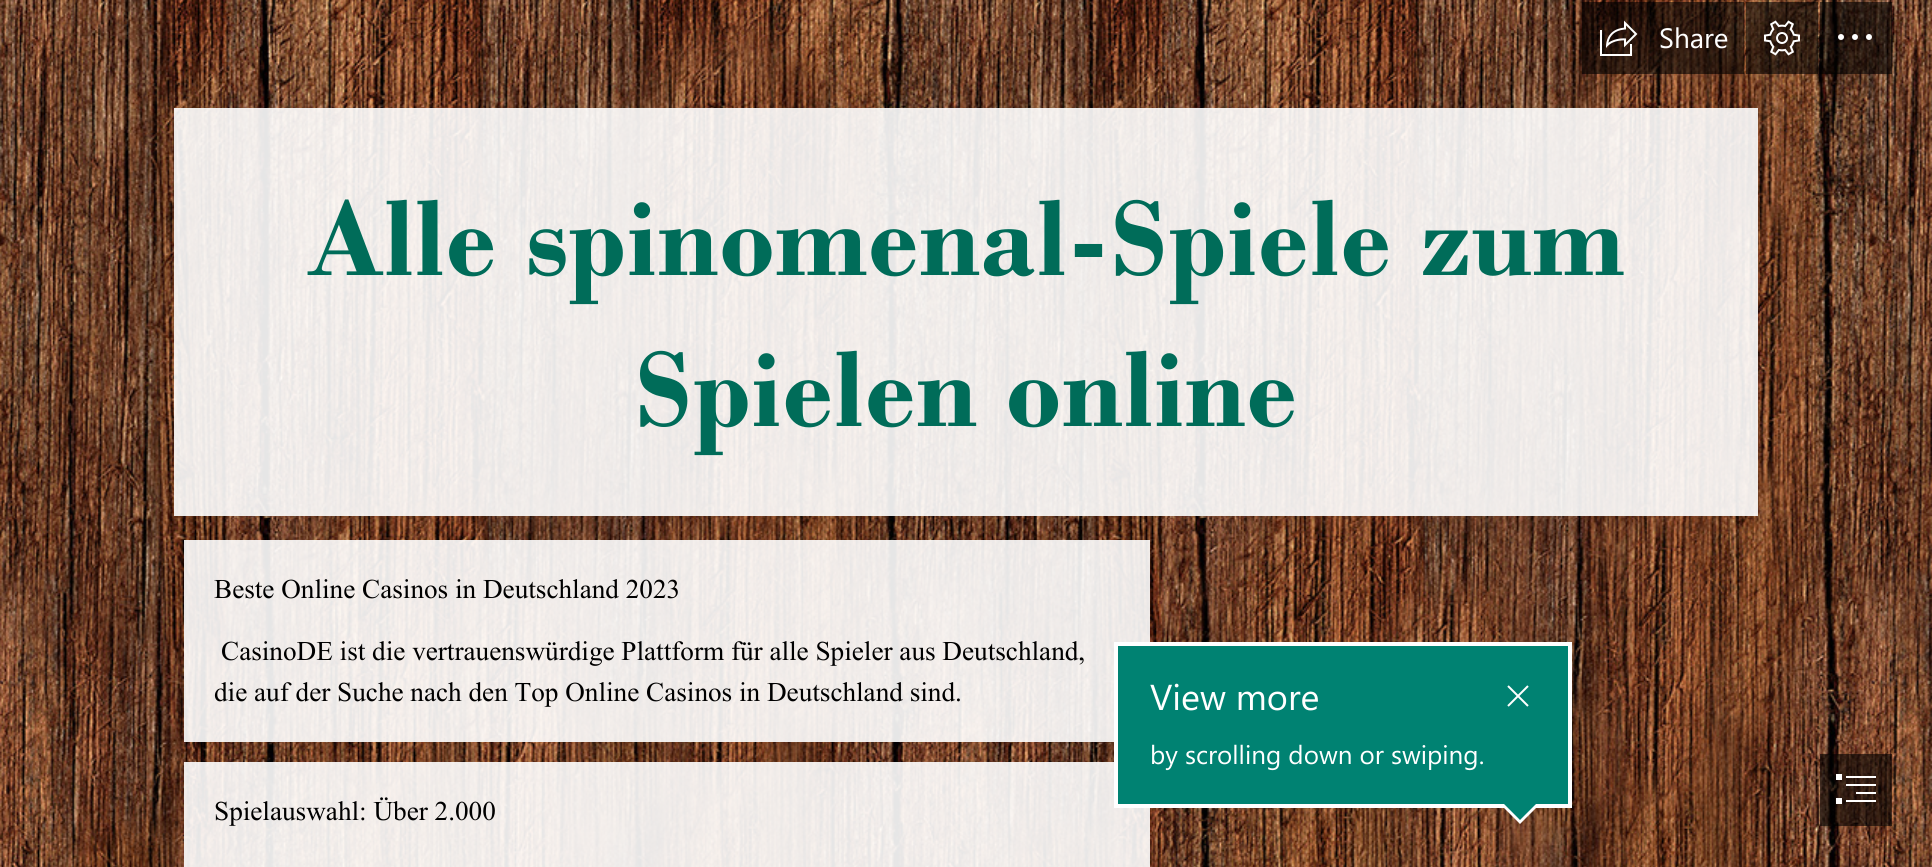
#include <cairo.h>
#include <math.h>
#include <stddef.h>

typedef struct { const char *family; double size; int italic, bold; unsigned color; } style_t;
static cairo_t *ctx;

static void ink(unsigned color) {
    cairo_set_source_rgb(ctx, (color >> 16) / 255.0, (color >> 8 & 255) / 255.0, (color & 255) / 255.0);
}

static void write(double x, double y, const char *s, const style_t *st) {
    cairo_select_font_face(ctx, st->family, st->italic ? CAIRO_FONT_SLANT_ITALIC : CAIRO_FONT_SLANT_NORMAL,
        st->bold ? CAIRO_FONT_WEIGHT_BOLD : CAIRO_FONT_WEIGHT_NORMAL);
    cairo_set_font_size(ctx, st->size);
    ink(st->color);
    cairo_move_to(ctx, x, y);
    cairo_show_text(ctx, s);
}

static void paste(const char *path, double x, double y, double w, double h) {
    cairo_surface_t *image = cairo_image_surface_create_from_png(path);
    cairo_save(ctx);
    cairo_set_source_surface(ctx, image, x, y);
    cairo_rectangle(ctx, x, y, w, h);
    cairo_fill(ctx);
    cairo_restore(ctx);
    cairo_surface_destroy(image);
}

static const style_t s1 = {"Segoe UI", 28, 0, 0, 0xffffff};
static const style_t s2 = {"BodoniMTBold", 113.25, 0, 1, 0x006c59};
static const style_t s3 = {"Times New Roman", 27.2, 0, 0, 0x000000};
static const style_t s4 = {"Segoe UI", 36, 0, 0, 0xffffff};
static const style_t s5 = {"Segoe UI", 26, 0, 0, 0xffffff};

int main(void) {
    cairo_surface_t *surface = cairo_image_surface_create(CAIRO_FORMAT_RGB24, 1932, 867);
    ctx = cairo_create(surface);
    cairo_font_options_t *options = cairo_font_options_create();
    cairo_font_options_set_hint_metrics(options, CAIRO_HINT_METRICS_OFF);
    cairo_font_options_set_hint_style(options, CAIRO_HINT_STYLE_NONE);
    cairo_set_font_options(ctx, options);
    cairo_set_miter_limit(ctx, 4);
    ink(0xffffff);
    cairo_paint(ctx);
    paste("pic4.png", 0, 0, 1932, 867);
    cairo_set_source_rgba(ctx, 0, 0, 0, 0.6);
    cairo_rectangle(ctx, 1582, 2, 162, 72);
    cairo_fill(ctx);
    paste("pic1.png", 1600, 20, 38, 36);
    write(1659, 48, "Share", &s1);
    cairo_set_source_rgba(ctx, 0, 0, 0, 0.6);
    cairo_rectangle(ctx, 1746, 2, 72, 72);
    cairo_fill(ctx);
    paste("pic2.png", 1764, 20, 36, 36);
    cairo_rectangle(ctx, 1820, 2, 72, 72);
    cairo_fill(ctx);
    paste("pic3.png", 1838, 34, 34, 6);
    cairo_set_source_rgba(ctx, 1, 1, 1, 0.9);
    cairo_rectangle(ctx, 174, 108, 1584, 408);
    cairo_fill(ctx);
    write(307, 275, "Alle spinomenal-Spiele zum", &s2);
    write(634, 426, "Spielen online", &s2);
    cairo_set_source_rgba(ctx, 1, 1, 1, 0.9);
    cairo_rectangle(ctx, 184, 540, 966, 202);
    cairo_fill(ctx);
    write(214, 598, "Beste Online Casinos in Deutschland 2023", &s3);
    write(221, 660, "CasinoDE ist die vertrauenswürdige Plattform für alle Spieler aus Deutschland,", &s3);
    write(214, 701, "die auf der Suche nach den Top Online Casinos in Deutschland sind.", &s3);
    cairo_set_source_rgba(ctx, 1, 1, 1, 0.9);
    cairo_rectangle(ctx, 184, 762, 966, 105);
    cairo_fill(ctx);
    write(214, 820, "Spielauswahl: Über 2.000", &s3);
    ink(0x008272);
    cairo_rectangle(ctx, 1116, 644, 454, 162);
    cairo_fill_preserve(ctx);
    ink(0xffffff);
    cairo_set_line_width(ctx, 4);
    cairo_stroke(ctx);
    write(1150, 710, "View more", &s4);
    write(1150, 764, "by scrolling down or swiping.", &s5);
    paste("pic5.png", 1507, 685, 22, 22);
    cairo_new_path(ctx);
    cairo_move_to(ctx, 1500, 804);
    cairo_line_to(ctx, 1540, 804);
    cairo_line_to(ctx, 1520, 824);
    cairo_close_path(ctx);
    cairo_fill(ctx);
    ink(0x008272);
    cairo_new_path(ctx);
    cairo_move_to(ctx, 1504, 804);
    cairo_line_to(ctx, 1536, 804);
    cairo_line_to(ctx, 1520, 820);
    cairo_close_path(ctx);
    cairo_fill(ctx);
    cairo_set_source_rgba(ctx, 0, 0, 0, 0.6);
    cairo_rectangle(ctx, 1820, 754, 72, 72);
    cairo_fill(ctx);
    paste("pic6.png", 1836, 774, 40, 30);
    cairo_surface_write_to_png(surface, "screenshot.png");
    cairo_font_options_destroy(options);
    cairo_destroy(ctx);
    cairo_surface_destroy(surface);
    return 0;
}
